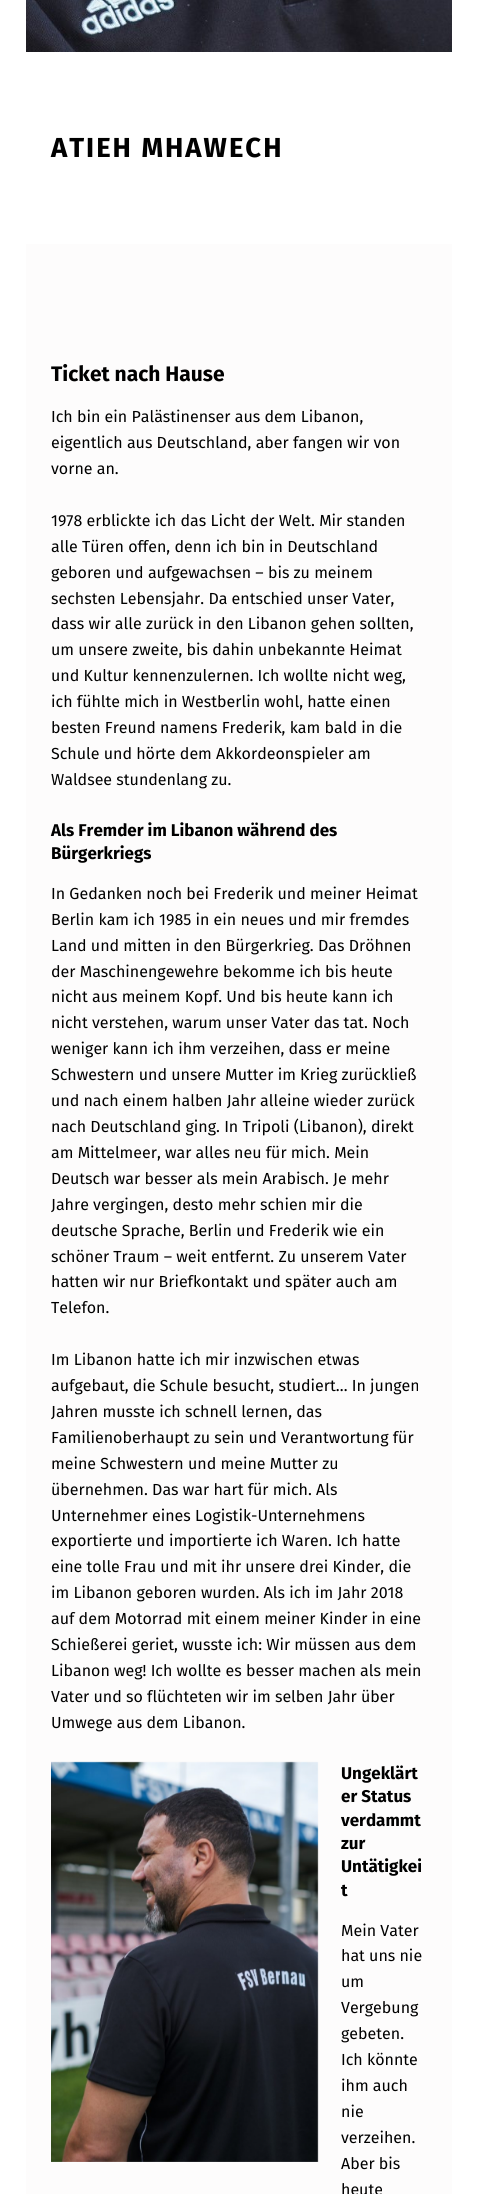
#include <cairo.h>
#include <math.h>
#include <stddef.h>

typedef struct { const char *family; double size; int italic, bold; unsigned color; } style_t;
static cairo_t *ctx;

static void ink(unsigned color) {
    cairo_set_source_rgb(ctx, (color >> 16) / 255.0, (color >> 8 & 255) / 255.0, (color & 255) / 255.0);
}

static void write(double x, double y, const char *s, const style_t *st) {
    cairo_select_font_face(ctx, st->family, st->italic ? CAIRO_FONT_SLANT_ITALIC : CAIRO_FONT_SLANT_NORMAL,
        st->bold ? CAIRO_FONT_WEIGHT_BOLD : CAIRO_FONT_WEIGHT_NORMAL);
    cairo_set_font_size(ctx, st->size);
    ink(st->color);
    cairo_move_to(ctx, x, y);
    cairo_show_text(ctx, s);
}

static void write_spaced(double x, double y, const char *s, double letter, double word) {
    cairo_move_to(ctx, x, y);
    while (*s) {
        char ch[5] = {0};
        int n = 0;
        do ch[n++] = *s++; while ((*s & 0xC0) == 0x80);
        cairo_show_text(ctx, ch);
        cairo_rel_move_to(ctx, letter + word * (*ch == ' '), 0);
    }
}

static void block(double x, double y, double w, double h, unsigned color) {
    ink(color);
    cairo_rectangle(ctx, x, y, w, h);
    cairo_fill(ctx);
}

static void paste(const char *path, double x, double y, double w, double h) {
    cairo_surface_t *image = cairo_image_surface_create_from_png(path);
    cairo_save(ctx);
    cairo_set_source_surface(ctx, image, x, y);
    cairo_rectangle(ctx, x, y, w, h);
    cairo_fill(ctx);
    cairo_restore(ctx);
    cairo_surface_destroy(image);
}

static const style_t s1 = {"Fira Sans", 21, 0, 1, 0x000000};
static const style_t s2 = {"Fira Sans", 16, 0, 0, 0x000000};
static const style_t s3 = {"Fira Sans", 17, 0, 1, 0x000000};

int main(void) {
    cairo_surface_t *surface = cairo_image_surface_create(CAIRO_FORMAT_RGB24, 478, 2194);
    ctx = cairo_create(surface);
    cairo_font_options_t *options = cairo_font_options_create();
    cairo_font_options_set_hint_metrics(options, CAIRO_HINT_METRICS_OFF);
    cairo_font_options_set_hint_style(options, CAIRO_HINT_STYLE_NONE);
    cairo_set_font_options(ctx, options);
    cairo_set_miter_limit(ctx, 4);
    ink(0xffffff);
    cairo_paint(ctx);
    block(26, 244, 426, 1950, 0xfdfcfc);
    paste("pic1.png", 26, 0, 426, 52);
    cairo_select_font_face(ctx, "Fira Sans", CAIRO_FONT_SLANT_NORMAL, CAIRO_FONT_WEIGHT_BOLD);
    cairo_set_font_size(ctx, 27.5);
    ink(0x000000);
    write_spaced(51, 157, "ATIEH MHAWECH", 2, 0);
    write(51, 381, "Ticket nach Hause", &s1);
    write(51, 422, "Ich bin ein Palästinenser aus dem Libanon,", &s2);
    write(51, 448, "eigentlich aus Deutschland, aber fangen wir von", &s2);
    write(51, 474, "vorne an.", &s2);
    write(51, 526, "1978 erblickte ich das Licht der Welt. Mir standen", &s2);
    write(51, 552, "alle Türen offen, denn ich bin in Deutschland", &s2);
    write(51, 578, "geboren und aufgewachsen – bis zu meinem", &s2);
    write(51, 604, "sechsten Lebensjahr. Da entschied unser Vater,", &s2);
    write(51, 629, "dass wir alle zurück in den Libanon gehen sollten,", &s2);
    write(51, 655, "um unsere zweite, bis dahin unbekannte Heimat", &s2);
    write(51, 681, "und Kultur kennenzulernen. Ich wollte nicht weg,", &s2);
    write(51, 707, "ich fühlte mich in Westberlin wohl, hatte einen", &s2);
    write(51, 733, "besten Freund namens Frederik, kam bald in die", &s2);
    write(51, 759, "Schule und hörte dem Akkordeonspieler am", &s2);
    write(51, 785, "Waldsee stundenlang zu.", &s2);
    write(51, 836, "Als Fremder im Libanon während des", &s3);
    write(51, 859, "Bürgerkriegs", &s3);
    write(51, 899, "In Gedanken noch bei Frederik und meiner Heimat", &s2);
    write(51, 925, "Berlin kam ich 1985 in ein neues und mir fremdes", &s2);
    write(51, 951, "Land und mitten in den Bürgerkrieg. Das Dröhnen", &s2);
    write(51, 977, "der Maschinengewehre bekomme ich bis heute", &s2);
    write(51, 1002, "nicht aus meinem Kopf. Und bis heute kann ich", &s2);
    write(51, 1028, "nicht verstehen, warum unser Vater das tat. Noch", &s2);
    write(51, 1054, "weniger kann ich ihm verzeihen, dass er meine", &s2);
    write(51, 1080, "Schwestern und unsere Mutter im Krieg zurückließ", &s2);
    write(51, 1106, "und nach einem halben Jahr alleine wieder zurück", &s2);
    write(51, 1132, "nach Deutschland ging. In Tripoli (Libanon), direkt", &s2);
    write(51, 1158, "am Mittelmeer, war alles neu für mich. Mein", &s2);
    write(51, 1184, "Deutsch war besser als mein Arabisch. Je mehr", &s2);
    write(51, 1210, "Jahre vergingen, desto mehr schien mir die", &s2);
    write(51, 1236, "deutsche Sprache, Berlin und Frederik wie ein", &s2);
    write(51, 1262, "schöner Traum – weit entfernt. Zu unserem Vater", &s2);
    write(51, 1287, "hatten wir nur Briefkontakt und später auch am", &s2);
    write(51, 1313, "Telefon.", &s2);
    write(51, 1365, "Im Libanon hatte ich mir inzwischen etwas", &s2);
    write(51, 1391, "aufgebaut, die Schule besucht, studiert… In jungen", &s2);
    write(51, 1417, "Jahren musste ich schnell lernen, das", &s2);
    write(51, 1443, "Familienoberhaupt zu sein und Verantwortung für", &s2);
    write(51, 1469, "meine Schwestern und meine Mutter zu", &s2);
    write(51, 1495, "übernehmen. Das war hart für mich. Als", &s2);
    write(51, 1521, "Unternehmer eines Logistik-Unternehmens", &s2);
    write(51, 1546, "exportierte und importierte ich Waren. Ich hatte", &s2);
    write(51, 1572, "eine tolle Frau und mit ihr unsere drei Kinder, die", &s2);
    write(51, 1598, "im Libanon geboren wurden. Als ich im Jahr 2018", &s2);
    write(51, 1624, "auf dem Motorrad mit einem meiner Kinder in eine", &s2);
    write(51, 1650, "Schießerei geriet, wusste ich: Wir müssen aus dem", &s2);
    write(51, 1676, "Libanon weg! Ich wollte es besser machen als mein", &s2);
    write(51, 1702, "Vater und so flüchteten wir im selben Jahr über", &s2);
    write(51, 1728, "Umwege aus dem Libanon.", &s2);
    paste("pic2.png", 51, 1761, 268, 401);
    write(341, 1779, "Ungeklärt", &s3);
    write(341, 1802, "er Status", &s3);
    write(341, 1826, "verdammt", &s3);
    write(341, 1849, "zur", &s3);
    write(341, 1872, "Untätigkei", &s3);
    write(341, 1896, "t", &s3);
    write(341, 1936, "Mein Vater", &s2);
    write(341, 1961, "hat uns nie", &s2);
    write(341, 1987, "um", &s2);
    write(341, 2013, "Vergebung", &s2);
    write(341, 2039, "gebeten.", &s2);
    write(341, 2065, "Ich könnte", &s2);
    write(341, 2091, "ihm auch", &s2);
    write(341, 2117, "nie", &s2);
    write(341, 2143, "verzeihen.", &s2);
    write(341, 2169, "Aber bis", &s2);
    write(341, 2195, "heute", &s2);
    cairo_surface_write_to_png(surface, "screenshot.png");
    cairo_font_options_destroy(options);
    cairo_destroy(ctx);
    cairo_surface_destroy(surface);
    return 0;
}
